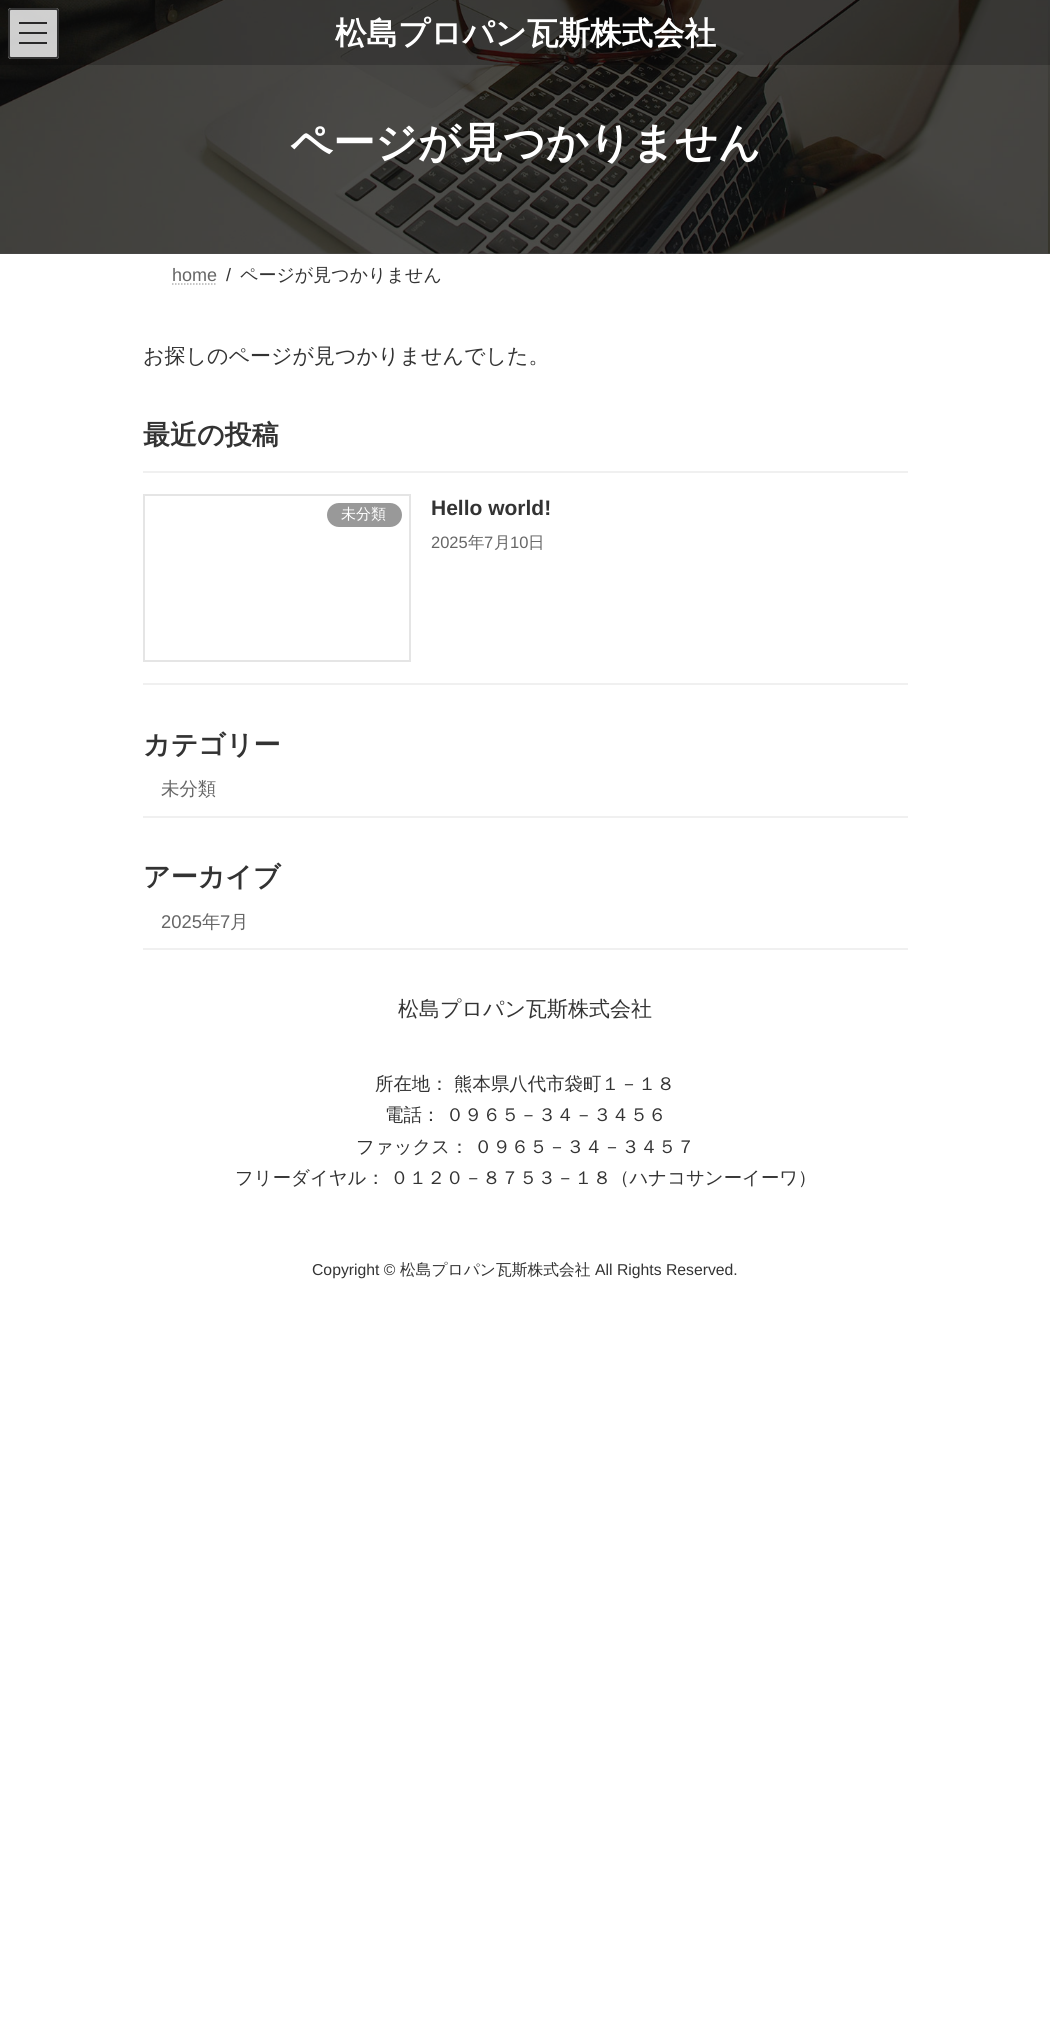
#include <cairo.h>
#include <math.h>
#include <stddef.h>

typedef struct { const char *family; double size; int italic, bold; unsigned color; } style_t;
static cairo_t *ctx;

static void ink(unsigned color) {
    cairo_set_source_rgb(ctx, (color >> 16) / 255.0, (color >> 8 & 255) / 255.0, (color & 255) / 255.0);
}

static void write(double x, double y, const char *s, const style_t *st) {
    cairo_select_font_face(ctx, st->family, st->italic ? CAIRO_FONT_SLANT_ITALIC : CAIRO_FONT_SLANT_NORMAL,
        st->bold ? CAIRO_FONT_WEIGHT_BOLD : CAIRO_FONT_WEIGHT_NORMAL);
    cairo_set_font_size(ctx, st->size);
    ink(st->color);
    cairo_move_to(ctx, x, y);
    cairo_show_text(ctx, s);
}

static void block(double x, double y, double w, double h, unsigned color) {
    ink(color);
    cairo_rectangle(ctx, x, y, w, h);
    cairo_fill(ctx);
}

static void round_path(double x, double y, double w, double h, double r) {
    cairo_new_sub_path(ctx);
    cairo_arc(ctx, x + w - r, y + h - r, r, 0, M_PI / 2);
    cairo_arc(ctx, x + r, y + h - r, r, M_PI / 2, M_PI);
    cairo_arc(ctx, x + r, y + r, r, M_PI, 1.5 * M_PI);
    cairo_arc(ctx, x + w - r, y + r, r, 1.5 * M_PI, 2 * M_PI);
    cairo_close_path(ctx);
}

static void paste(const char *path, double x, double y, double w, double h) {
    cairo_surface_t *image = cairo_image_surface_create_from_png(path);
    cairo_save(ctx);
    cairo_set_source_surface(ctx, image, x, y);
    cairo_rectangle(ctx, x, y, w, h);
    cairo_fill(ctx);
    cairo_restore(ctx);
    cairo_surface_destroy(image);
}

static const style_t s1 = {"WenQuanYi Zen Hei", 31.5, 0, 1, 0xffffff};
static const style_t s2 = {"WenQuanYi Zen Hei", 42, 0, 1, 0xffffff};
static const style_t s3 = {"Liberation Sans", 18, 0, 0, 0x666666};
static const style_t s4 = {"Liberation Sans", 18, 0, 0, 0x333333};
static const style_t s5 = {"WenQuanYi Zen Hei Medium", 18, 0, 0, 0x333333};
static const style_t s6 = {"WenQuanYi Zen Hei Medium", 21, 0, 0, 0x333333};
static const style_t s7 = {"WenQuanYi Zen Hei", 27, 0, 1, 0x333333};
static const style_t s8 = {"WenQuanYi Zen Hei Medium", 15, 0, 0, 0xffffff};
static const style_t s9 = {"Liberation Sans", 21, 0, 1, 0x333333};
static const style_t s10 = {"Liberation Sans", 16.5, 0, 0, 0x666666};
static const style_t s11 = {"WenQuanYi Zen Hei Medium", 16.5, 0, 0, 0x666666};
static const style_t s12 = {"WenQuanYi Zen Hei Medium", 18.4, 0, 0, 0x666666};
static const style_t s13 = {"Liberation Sans", 18.4, 0, 0, 0x666666};
static const style_t s14 = {"WenQuanYi Zen Hei Medium", 18.4, 0, 0, 0x333333};
static const style_t s15 = {"Liberation Sans", 15.75, 0, 0, 0x333333};
static const style_t s16 = {"WenQuanYi Zen Hei Medium", 15.75, 0, 0, 0x333333};

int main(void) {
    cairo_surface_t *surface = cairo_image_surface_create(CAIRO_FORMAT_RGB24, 1050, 2032);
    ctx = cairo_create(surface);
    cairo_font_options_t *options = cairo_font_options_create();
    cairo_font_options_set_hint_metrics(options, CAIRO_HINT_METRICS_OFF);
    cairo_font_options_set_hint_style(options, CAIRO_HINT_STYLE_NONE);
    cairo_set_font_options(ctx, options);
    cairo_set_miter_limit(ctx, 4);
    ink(0xffffff);
    cairo_paint(ctx);
    block(0, 253, 1050, 1, 0x4d4d4d);
    paste("pic1.png", 0, 0, 1050, 254);
    cairo_set_source_rgba(ctx, 0, 0, 0, 0.2);
    cairo_rectangle(ctx, 0, 0, 1050, 65);
    cairo_fill(ctx);
    cairo_set_source_rgba(ctx, 1, 1, 1, 0.8);
    round_path(8, 8, 51, 51, 3);
    cairo_fill(ctx);
    block(19, 22, 28, 2, 0x2a2929);
    block(19, 32, 28, 2, 0x292929);
    block(19, 42, 28, 2, 0x292929);
    round_path(9, 9, 49, 49, 2);
    ink(0x333333);
    cairo_stroke(ctx);
    write(335, 44, "松島プロパン瓦斯株式会社", &s1);
    write(290, 157, "ページが見つかりません", &s2);
    write(172, 281, "home", &s3);
    cairo_new_path(ctx);
    cairo_move_to(ctx, 172, 284);
    cairo_line_to(ctx, 217, 284);
    ink(0xb3b3b3);
    cairo_set_line_width(ctx, 1.5);
    cairo_set_dash(ctx, (double[]){1.5, 1.5}, 2, 0);
    cairo_stroke(ctx);
    write(226, 281, "/", &s4);
    write(240, 281, "ページが見つかりません", &s5);
    write(143, 363, "お探しのページが見つかりませんでした。", &s6);
    write(143, 444, "最近の投稿", &s7);
    block(143, 471, 765, 2, 0xf0f0f0);
    block(143, 683, 765, 2, 0xf0f0f0);
    cairo_rectangle(ctx, 144, 495, 266, 166);
    ink(0xe5e5e5);
    cairo_set_line_width(ctx, 2);
    cairo_set_dash(ctx, NULL, 0, 0);
    cairo_stroke(ctx);
    ink(0x999999);
    round_path(327, 503, 75, 24, 12);
    cairo_fill(ctx);
    write(341, 519, "未分類", &s8);
    write(431, 515, "Hello world!", &s9);
    write(431, 548, "2025", &s10);
    write(468, 548, "年", &s11);
    write(484, 548, "7", &s10);
    write(494, 548, "月", &s11);
    write(510, 548, "10", &s10);
    write(528, 548, "日", &s11);
    write(143, 754, "カテゴリー", &s7);
    block(143, 816, 765, 2, 0xf0f0f0);
    write(161, 795, "未分類", &s12);
    write(143, 886, "アーカイブ", &s7);
    block(143, 948, 765, 2, 0xf0f0f0);
    write(161, 928, "2025", &s13);
    write(202, 928, "年", &s12);
    write(220, 928, "7", &s13);
    write(230, 928, "月", &s12);
    write(398, 1016, "松島プロパン瓦斯株式会社", &s6);
    write(375, 1090, "所在地： 熊本県八代市袋町１－１８", &s14);
    write(385, 1121, "電話： ０９６５－３４－３４５６", &s14);
    write(356, 1153, "ファックス： ０９６５－３４－３４５７", &s14);
    write(235, 1184, "フリーダイヤル： ０１２０－８７５３－１８（ハナコサンーイーワ）", &s14);
    write(312, 1275, "Copyright ©", &s15);
    write(400, 1275, "松島プロパン瓦斯株式会社", &s16);
    write(595, 1275, "All Rights Reserved.", &s15);
    cairo_surface_write_to_png(surface, "screenshot.png");
    cairo_font_options_destroy(options);
    cairo_destroy(ctx);
    cairo_surface_destroy(surface);
    return 0;
}
